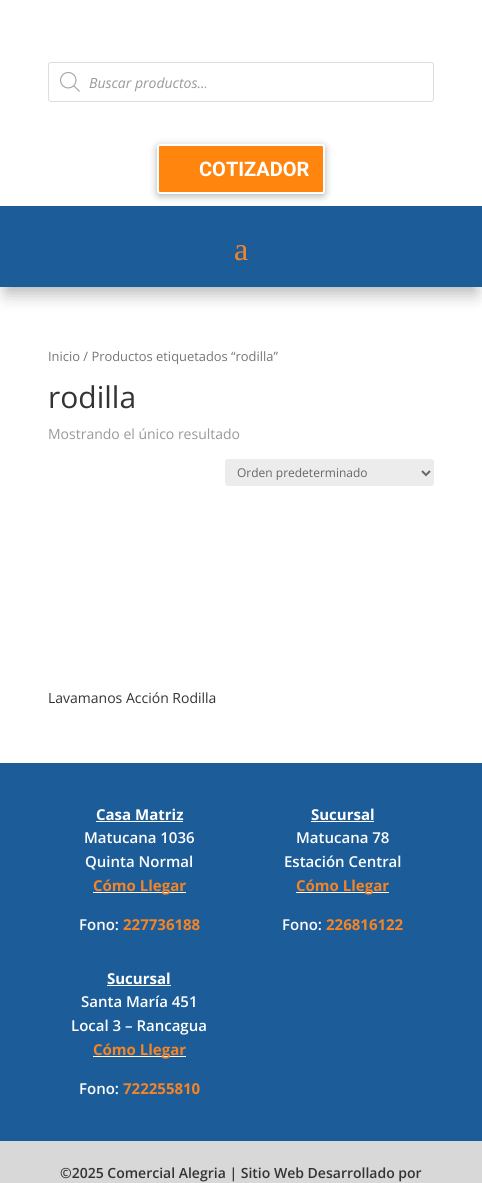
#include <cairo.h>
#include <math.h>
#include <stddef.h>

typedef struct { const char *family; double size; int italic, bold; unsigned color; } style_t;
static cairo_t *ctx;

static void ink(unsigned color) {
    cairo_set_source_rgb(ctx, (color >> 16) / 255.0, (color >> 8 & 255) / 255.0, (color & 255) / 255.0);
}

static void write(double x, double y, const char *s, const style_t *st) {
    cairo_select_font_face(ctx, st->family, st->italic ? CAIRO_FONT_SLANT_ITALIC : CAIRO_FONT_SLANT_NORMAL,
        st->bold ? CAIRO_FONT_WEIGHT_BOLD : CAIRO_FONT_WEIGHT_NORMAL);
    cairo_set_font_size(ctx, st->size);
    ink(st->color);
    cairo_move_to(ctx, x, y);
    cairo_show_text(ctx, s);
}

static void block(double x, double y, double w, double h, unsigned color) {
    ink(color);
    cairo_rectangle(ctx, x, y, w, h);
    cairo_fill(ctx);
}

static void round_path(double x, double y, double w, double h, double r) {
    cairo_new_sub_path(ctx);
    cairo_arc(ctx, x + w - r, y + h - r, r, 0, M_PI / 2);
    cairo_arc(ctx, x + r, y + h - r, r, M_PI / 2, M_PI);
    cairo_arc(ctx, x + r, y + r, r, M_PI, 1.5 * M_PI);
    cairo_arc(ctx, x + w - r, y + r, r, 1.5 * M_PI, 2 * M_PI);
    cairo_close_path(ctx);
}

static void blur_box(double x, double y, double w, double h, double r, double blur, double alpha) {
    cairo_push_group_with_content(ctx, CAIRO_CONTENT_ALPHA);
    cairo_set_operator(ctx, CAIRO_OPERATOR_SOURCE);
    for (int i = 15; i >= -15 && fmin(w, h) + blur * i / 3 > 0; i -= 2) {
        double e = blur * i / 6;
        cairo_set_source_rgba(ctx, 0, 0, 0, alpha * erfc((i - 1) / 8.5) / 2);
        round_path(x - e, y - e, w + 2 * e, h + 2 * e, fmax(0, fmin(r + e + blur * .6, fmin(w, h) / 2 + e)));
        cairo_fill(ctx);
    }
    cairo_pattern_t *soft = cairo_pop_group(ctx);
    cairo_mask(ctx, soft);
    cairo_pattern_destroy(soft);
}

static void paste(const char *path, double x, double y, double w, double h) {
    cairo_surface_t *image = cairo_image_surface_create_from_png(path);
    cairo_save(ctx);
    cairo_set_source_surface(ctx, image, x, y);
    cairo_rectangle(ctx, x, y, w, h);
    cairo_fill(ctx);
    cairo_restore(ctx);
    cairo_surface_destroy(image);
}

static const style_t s1 = {"Open Sans", 14, 1, 0, 0x999999};
static const style_t s2 = {"Roboto", 20, 0, 1, 0xffffff};
static const style_t s3 = {"Liberation Serif", 32, 0, 0, 0xf58425};
static const style_t s4 = {"Open Sans", 12.9, 0, 0, 0x767676};
static const style_t s5 = {"Open Sans", 30, 0, 0, 0x333333};
static const style_t s6 = {"Open Sans", 14, 0, 0, 0x999999};
static const style_t s7 = {"Open Sans", 12, 0, 0, 0x666666};
static const style_t s8 = {"Open Sans", 14, 0, 0, 0x333333};
static const style_t s9 = {"Open Sans", 15, 0, 1, 0xffffff};
static const style_t s10 = {"Open Sans SemiBold", 15, 0, 0, 0xffffff};
static const style_t s11 = {"Open Sans", 15, 0, 1, 0xf58425};
static const style_t s12 = {"Open Sans SemiBold", 14, 0, 0, 0x333333};

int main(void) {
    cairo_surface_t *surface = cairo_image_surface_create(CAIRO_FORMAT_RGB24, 482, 1183);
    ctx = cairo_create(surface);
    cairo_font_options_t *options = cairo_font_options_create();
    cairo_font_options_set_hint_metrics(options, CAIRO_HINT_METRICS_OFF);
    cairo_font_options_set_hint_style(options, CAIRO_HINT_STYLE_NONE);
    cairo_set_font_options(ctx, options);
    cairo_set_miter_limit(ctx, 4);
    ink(0xffffff);
    cairo_paint(ctx);
    round_path(48.5, 62.5, 385, 39, 2.5);
    ink(0xdddddd);
    cairo_set_line_width(ctx, 1);
    cairo_stroke(ctx);
    paste("pic1.png", 60, 72, 20, 20);
    write(89, 88, "Buscar productos...", &s1);
    ink(0x000000);
    blur_box(6, 224, 470, 69, 0, 9, 0.3);
    block(0, 206, 482, 81, 0x1c5d99);
    ink(0x000000);
    blur_box(157, 146, 168, 50, 3, 4, 0.3);
    ink(0xff850f);
    round_path(158, 145, 166, 48, 2);
    cairo_fill_preserve(ctx);
    ink(0xffffff);
    cairo_set_line_width(ctx, 2);
    cairo_stroke(ctx);
    write(199, 176, "COTIZADOR", &s2);
    write(234, 260, "a", &s3);
    write(48, 361, "Inicio / Productos etiquetados “rodilla”", &s4);
    write(48, 408, "rodilla", &s5);
    write(48, 439, "Mostrando el único resultado", &s6);
    ink(0xececec);
    round_path(225, 459, 209, 27, 3);
    cairo_fill(ctx);
    cairo_new_path(ctx);
    cairo_move_to(ctx, 422, 471);
    cairo_line_to(ctx, 426, 475);
    cairo_line_to(ctx, 430, 471);
    ink(0x666666);
    cairo_stroke(ctx);
    write(237, 477, "Orden predeterminado", &s7);
    write(48, 703, "Lavamanos Acción Rodilla", &s8);
    block(0, 763, 482, 378, 0x1c5d99);
    write(96, 820, "Casa Matriz", &s9);
    block(96, 821, 87, 1, 0xffffff);
    write(84, 843, "Matucana 1036", &s10);
    write(85, 867, "Quinta Normal", &s10);
    block(93, 892, 93, 1, 0xffffff);
    write(93, 891, "Cómo Llegar", &s11);
    write(79, 930, "Fono:", &s10);
    write(123, 930, "227736188", &s11);
    write(311, 820, "Sucursal", &s9);
    block(311, 821, 63, 1, 0xffffff);
    write(296, 843, "Matucana 78", &s10);
    write(284, 867, "Estación Central", &s10);
    block(296, 892, 93, 1, 0xffffff);
    write(296, 891, "Cómo Llegar", &s11);
    write(282, 930, "Fono:", &s10);
    write(326, 930, "226816122", &s11);
    write(107, 984, "Sucursal", &s9);
    block(107, 985, 64, 1, 0xffffff);
    write(81, 1007, "Santa María 451", &s10);
    write(71, 1031, "Local 3 – Rancagua", &s10);
    block(93, 1056, 93, 1, 0xffffff);
    write(93, 1055, "Cómo Llegar", &s11);
    write(79, 1094, "Fono:", &s10);
    write(123, 1094, "722255810", &s11);
    block(0, 1141, 482, 42, 0xd8d8d8);
    write(60, 1178, "©2025 Comercial Alegria | Sitio Web Desarrollado por", &s12);
    cairo_surface_write_to_png(surface, "screenshot.png");
    cairo_font_options_destroy(options);
    cairo_destroy(ctx);
    cairo_surface_destroy(surface);
    return 0;
}
